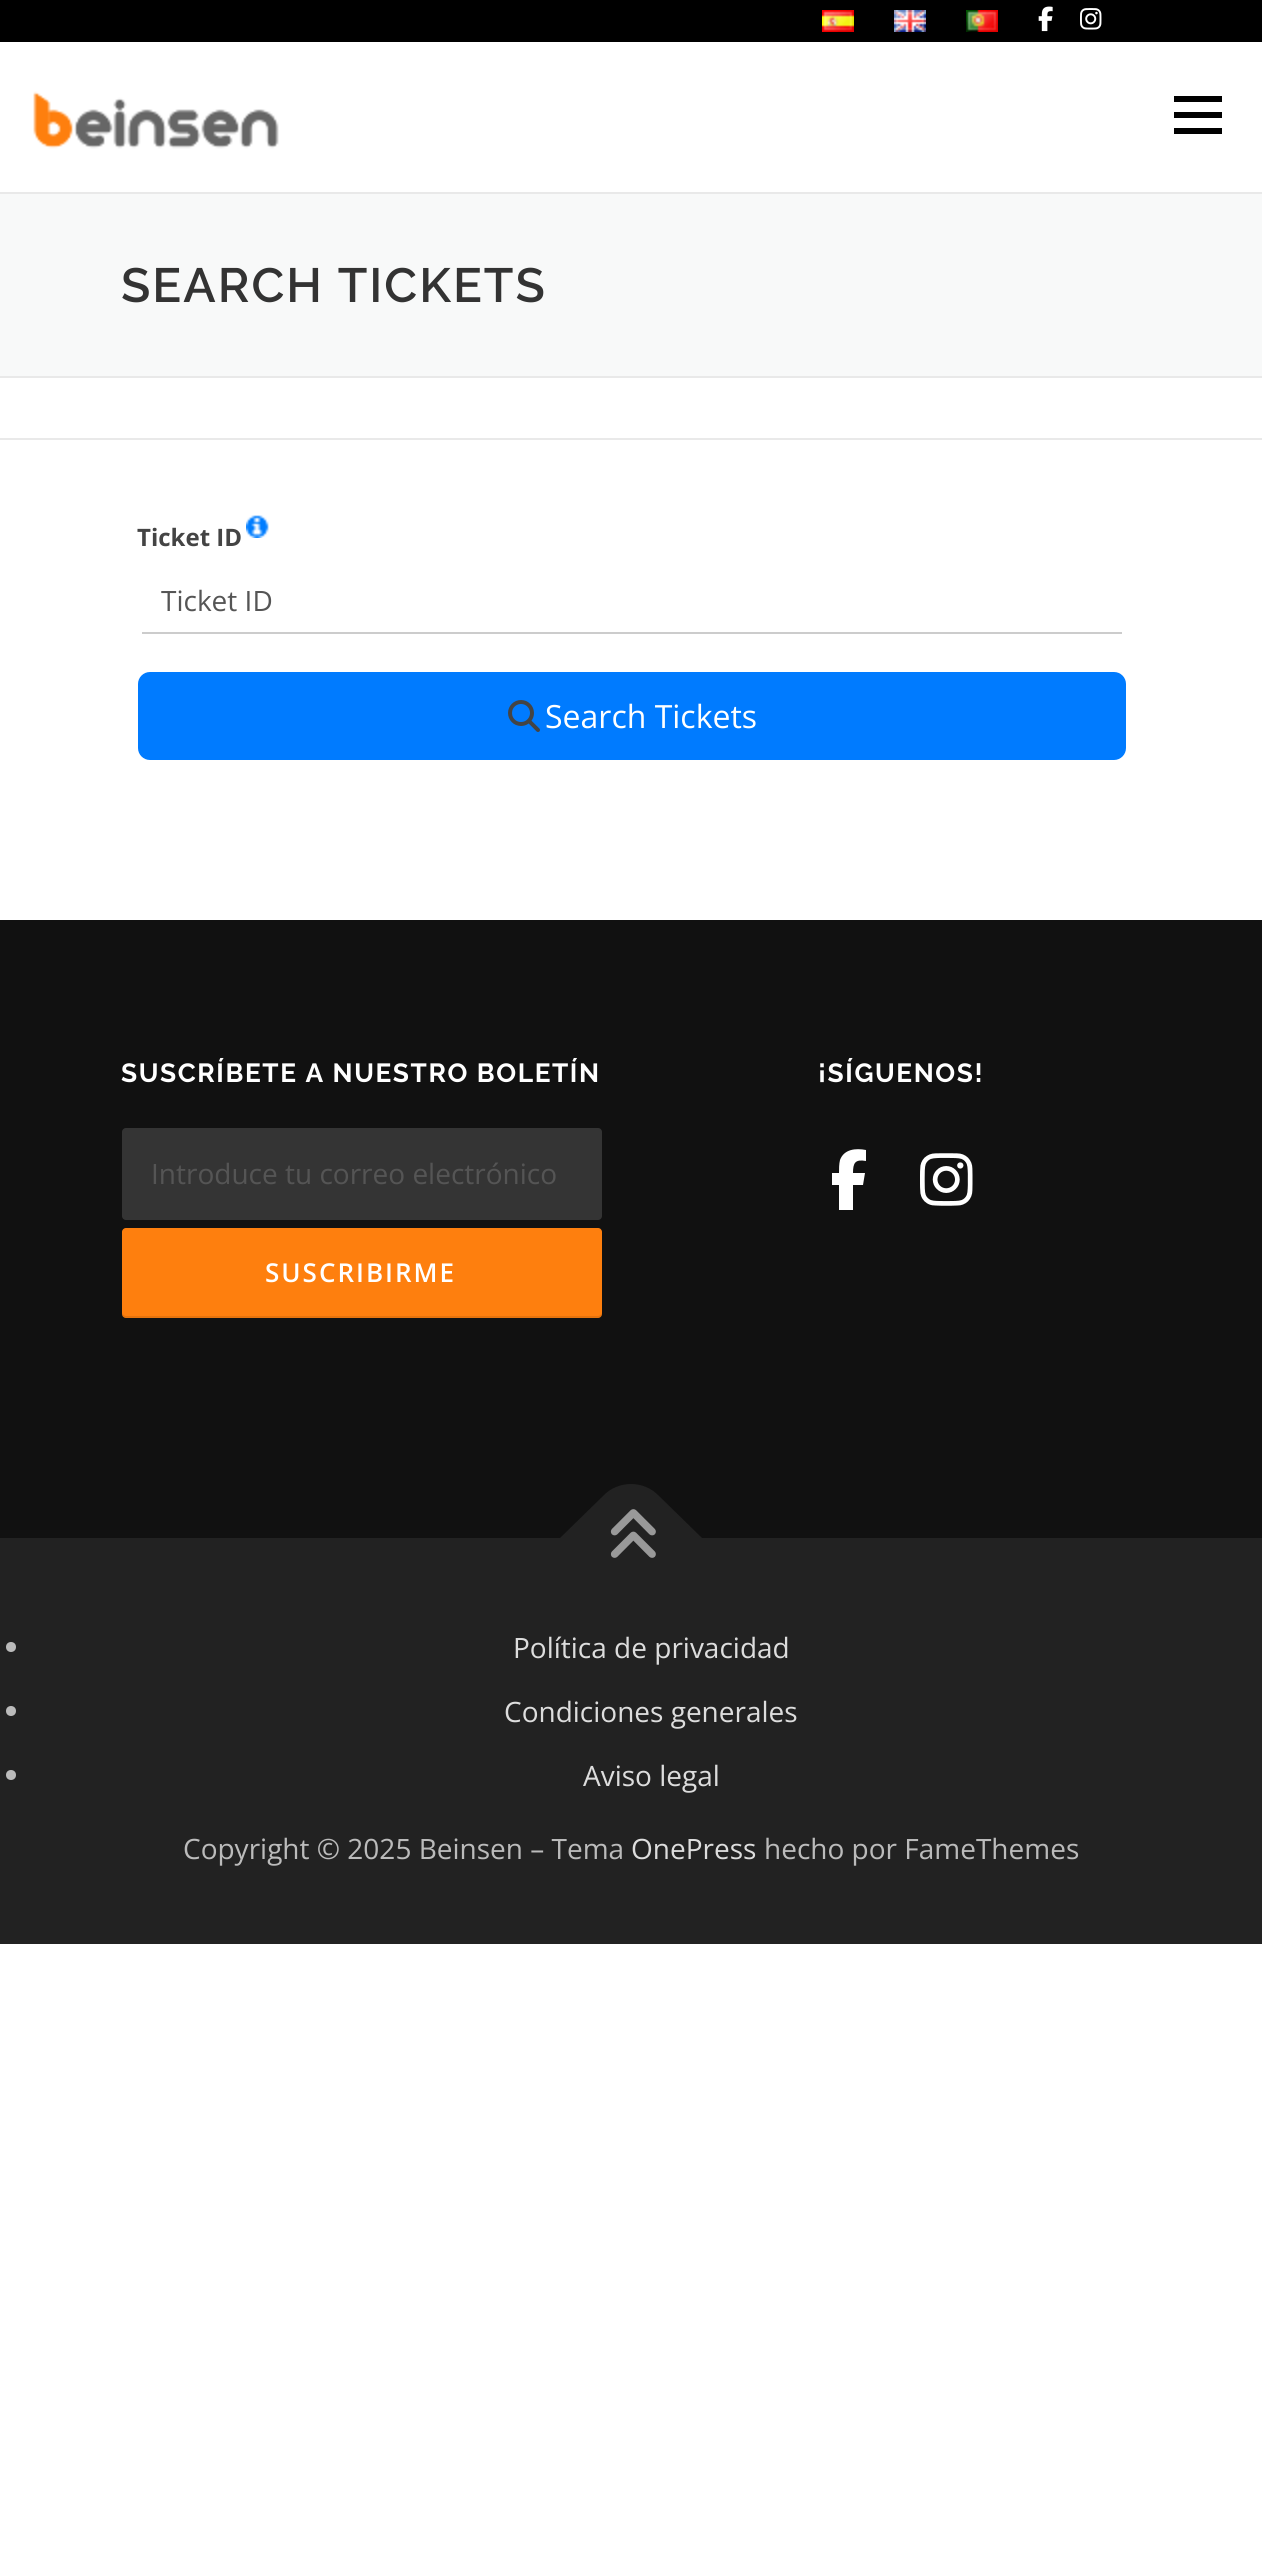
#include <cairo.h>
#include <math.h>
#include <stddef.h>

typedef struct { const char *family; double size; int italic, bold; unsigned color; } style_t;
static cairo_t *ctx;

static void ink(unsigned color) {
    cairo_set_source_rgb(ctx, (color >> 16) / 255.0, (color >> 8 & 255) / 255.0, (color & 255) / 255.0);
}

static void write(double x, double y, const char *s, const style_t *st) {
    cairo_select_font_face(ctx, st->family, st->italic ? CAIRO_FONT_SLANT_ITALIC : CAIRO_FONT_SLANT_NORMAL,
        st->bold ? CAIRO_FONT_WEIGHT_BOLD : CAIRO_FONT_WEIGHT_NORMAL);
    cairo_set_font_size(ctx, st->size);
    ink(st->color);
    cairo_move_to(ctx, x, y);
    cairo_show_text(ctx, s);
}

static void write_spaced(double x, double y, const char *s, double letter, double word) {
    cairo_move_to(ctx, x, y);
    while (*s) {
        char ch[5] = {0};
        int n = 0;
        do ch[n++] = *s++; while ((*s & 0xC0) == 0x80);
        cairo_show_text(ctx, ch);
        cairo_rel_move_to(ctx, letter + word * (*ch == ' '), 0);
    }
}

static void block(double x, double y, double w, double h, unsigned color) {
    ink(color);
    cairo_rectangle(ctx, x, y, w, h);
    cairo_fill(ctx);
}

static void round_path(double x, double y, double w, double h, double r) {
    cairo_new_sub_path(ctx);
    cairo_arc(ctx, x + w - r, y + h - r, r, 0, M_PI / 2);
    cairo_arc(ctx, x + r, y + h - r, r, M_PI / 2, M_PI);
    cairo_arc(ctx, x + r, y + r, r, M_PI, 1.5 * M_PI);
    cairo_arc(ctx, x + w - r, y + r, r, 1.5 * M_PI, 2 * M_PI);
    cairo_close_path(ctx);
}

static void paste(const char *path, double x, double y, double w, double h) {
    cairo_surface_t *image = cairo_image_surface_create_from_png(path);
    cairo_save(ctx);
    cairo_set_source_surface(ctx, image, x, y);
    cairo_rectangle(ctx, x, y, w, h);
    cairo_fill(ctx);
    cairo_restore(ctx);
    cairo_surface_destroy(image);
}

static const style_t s1 = {"Open Sans", 24, 0, 1, 0x444444};
static const style_t s2 = {"Open Sans", 28, 0, 0, 0x555555};
static const style_t s3 = {"Open Sans", 32, 0, 0, 0xffffff};
static const style_t s4 = {"Open Sans", 28, 0, 0, 0xdddddd};
static const style_t s5 = {"Open Sans", 28, 0, 0, 0xbbbbbb};

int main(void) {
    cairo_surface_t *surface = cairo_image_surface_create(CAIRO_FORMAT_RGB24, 1262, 2561);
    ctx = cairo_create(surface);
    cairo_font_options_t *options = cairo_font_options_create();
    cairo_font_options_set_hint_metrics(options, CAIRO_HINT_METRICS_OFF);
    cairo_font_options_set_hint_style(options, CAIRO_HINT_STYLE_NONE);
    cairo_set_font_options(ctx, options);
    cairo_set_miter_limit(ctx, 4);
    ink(0xffffff);
    cairo_paint(ctx);
    block(0, 0, 1262, 42, 0x000000);
    paste("pic1.png", 822, 10, 32, 22);
    paste("pic2.png", 894, 10, 32, 22);
    paste("pic3.png", 966, 10, 32, 22);
    paste("pic4.png", 1038, 6, 15, 26);
    paste("pic5.png", 1080, 8, 22, 22);
    paste("pic6.png", 33, 91, 246, 58);
    block(1174, 112, 48, 6, 0x000000);
    block(1174, 96, 48, 6, 0x000000);
    block(1174, 128, 48, 6, 0x000000);
    block(0, 194, 1262, 182, 0xf8f9f9);
    block(0, 192, 1262, 2, 0xe9e9e9);
    block(0, 376, 1262, 2, 0xe9e9e9);
    cairo_select_font_face(ctx, "Raleway SemiBold", CAIRO_FONT_SLANT_NORMAL, CAIRO_FONT_WEIGHT_NORMAL);
    cairo_set_font_size(ctx, 48);
    ink(0x333333);
    write_spaced(121, 302, "SEARCH TICKETS", 2, 0);
    block(0, 438, 1262, 2, 0xe9e9e9);
    write(137, 546, "Ticket ID", &s1);
    paste("pic7.png", 246, 515, 23, 23);
    block(142, 632, 980, 2, 0xcccccc);
    write(161, 611, "Ticket ID", &s2);
    ink(0x007bff);
    round_path(139, 673, 986, 86, 11);
    cairo_fill_preserve(ctx);
    cairo_stroke(ctx);
    paste("pic8.png", 508, 700, 32, 32);
    write(545, 728, "Search Tickets", &s3);
    block(0, 920, 1262, 618, 0x111111);
    cairo_select_font_face(ctx, "Raleway", CAIRO_FONT_SLANT_NORMAL, CAIRO_FONT_WEIGHT_BOLD);
    cairo_set_font_size(ctx, 26.25);
    ink(0xffffff);
    write_spaced(121, 1082, "SUSCRÍBETE A NUESTRO BOLETÍN", 1.6, 0);
    ink(0x343434);
    round_path(122, 1128, 480, 92, 4);
    cairo_fill(ctx);
    write(151, 1184, "Introduce tu correo electrónico", &s2);
    ink(0xfe7f0e);
    round_path(122, 1228, 480, 90, 4);
    cairo_fill(ctx);
    cairo_set_source_rgba(ctx, 0, 0, 0, 0.1);
    cairo_new_path(ctx);
    cairo_move_to(ctx, 122, 1312);
    cairo_line_to(ctx, 122, 1314);
    cairo_curve_to(ctx, 122, 1316, 124, 1318, 126, 1318);
    cairo_line_to(ctx, 598, 1318);
    cairo_curve_to(ctx, 600, 1318, 602, 1316, 602, 1314);
    cairo_line_to(ctx, 602, 1312);
    cairo_curve_to(ctx, 602, 1314, 600, 1316, 598, 1316);
    cairo_line_to(ctx, 126, 1316);
    cairo_curve_to(ctx, 124, 1316, 122, 1314, 122, 1312);
    cairo_close_path(ctx);
    cairo_fill(ctx);
    cairo_select_font_face(ctx, "Open Sans SemiBold", CAIRO_FONT_SLANT_NORMAL, CAIRO_FONT_WEIGHT_NORMAL);
    cairo_set_font_size(ctx, 26);
    ink(0xffffff);
    write_spaced(265, 1282, "SUSCRIBIRME", 2, 0);
    cairo_select_font_face(ctx, "Raleway", CAIRO_FONT_SLANT_NORMAL, CAIRO_FONT_WEIGHT_BOLD);
    cairo_set_font_size(ctx, 26.25);
    write_spaced(818, 1082, "¡SÍGUENOS!", 1.6, 0);
    cairo_new_path(ctx);
    cairo_move_to(ctx, 839, 1185);
    cairo_line_to(ctx, 839, 1210);
    cairo_line_to(ctx, 839, 1185);
    cairo_line_to(ctx, 839, 1210);
    cairo_line_to(ctx, 853, 1210);
    cairo_line_to(ctx, 853, 1185);
    cairo_line_to(ctx, 863, 1185);
    cairo_line_to(ctx, 865, 1173);
    cairo_line_to(ctx, 853, 1173);
    cairo_curve_to(ctx, 853, 1163, 855, 1159, 866, 1161);
    cairo_line_to(ctx, 866, 1150);
    cairo_curve_to(ctx, 856, 1148, 844, 1149, 840, 1160);
    cairo_curve_to(ctx, 839, 1164, 839, 1169, 839, 1173);
    cairo_line_to(ctx, 832, 1173);
    cairo_line_to(ctx, 832, 1185);
    cairo_close_path(ctx);
    cairo_fill(ctx);
    paste("pic9.png", 920, 1153, 53, 53);
    block(0, 1538, 1262, 406, 0x222222);
    ink(0xbbbbbb);
    cairo_arc(ctx, 11, 1647, 5, 0, 2 * M_PI);
    cairo_fill(ctx);
    write(513, 1658, "Política de privacidad", &s4);
    ink(0xbbbbbb);
    cairo_new_path(ctx);
    cairo_arc(ctx, 11, 1711, 5, 0, 2 * M_PI);
    cairo_fill(ctx);
    write(504, 1722, "Condiciones generales", &s4);
    ink(0xbbbbbb);
    cairo_new_path(ctx);
    cairo_arc(ctx, 11, 1775, 5, 0, 2 * M_PI);
    cairo_fill(ctx);
    write(583, 1786, "Aviso legal", &s4);
    ink(0x222222);
    cairo_new_path(ctx);
    cairo_move_to(ctx, 560, 1538);
    cairo_line_to(ctx, 603, 1496);
    cairo_curve_to(ctx, 618, 1480, 644, 1480, 659, 1496);
    cairo_line_to(ctx, 702, 1538);
    cairo_line_to(ctx, 631, 1609);
    cairo_close_path(ctx);
    cairo_fill(ctx);
    paste("pic10.png", 610, 1509, 46, 49);
    write(183, 1859, "Copyright © 2025 Beinsen – Tema", &s5);
    write(631, 1859, "OnePress", &s4);
    write(764, 1859, "hecho por FameThemes", &s5);
    cairo_surface_write_to_png(surface, "screenshot.png");
    cairo_font_options_destroy(options);
    cairo_destroy(ctx);
    cairo_surface_destroy(surface);
    return 0;
}
